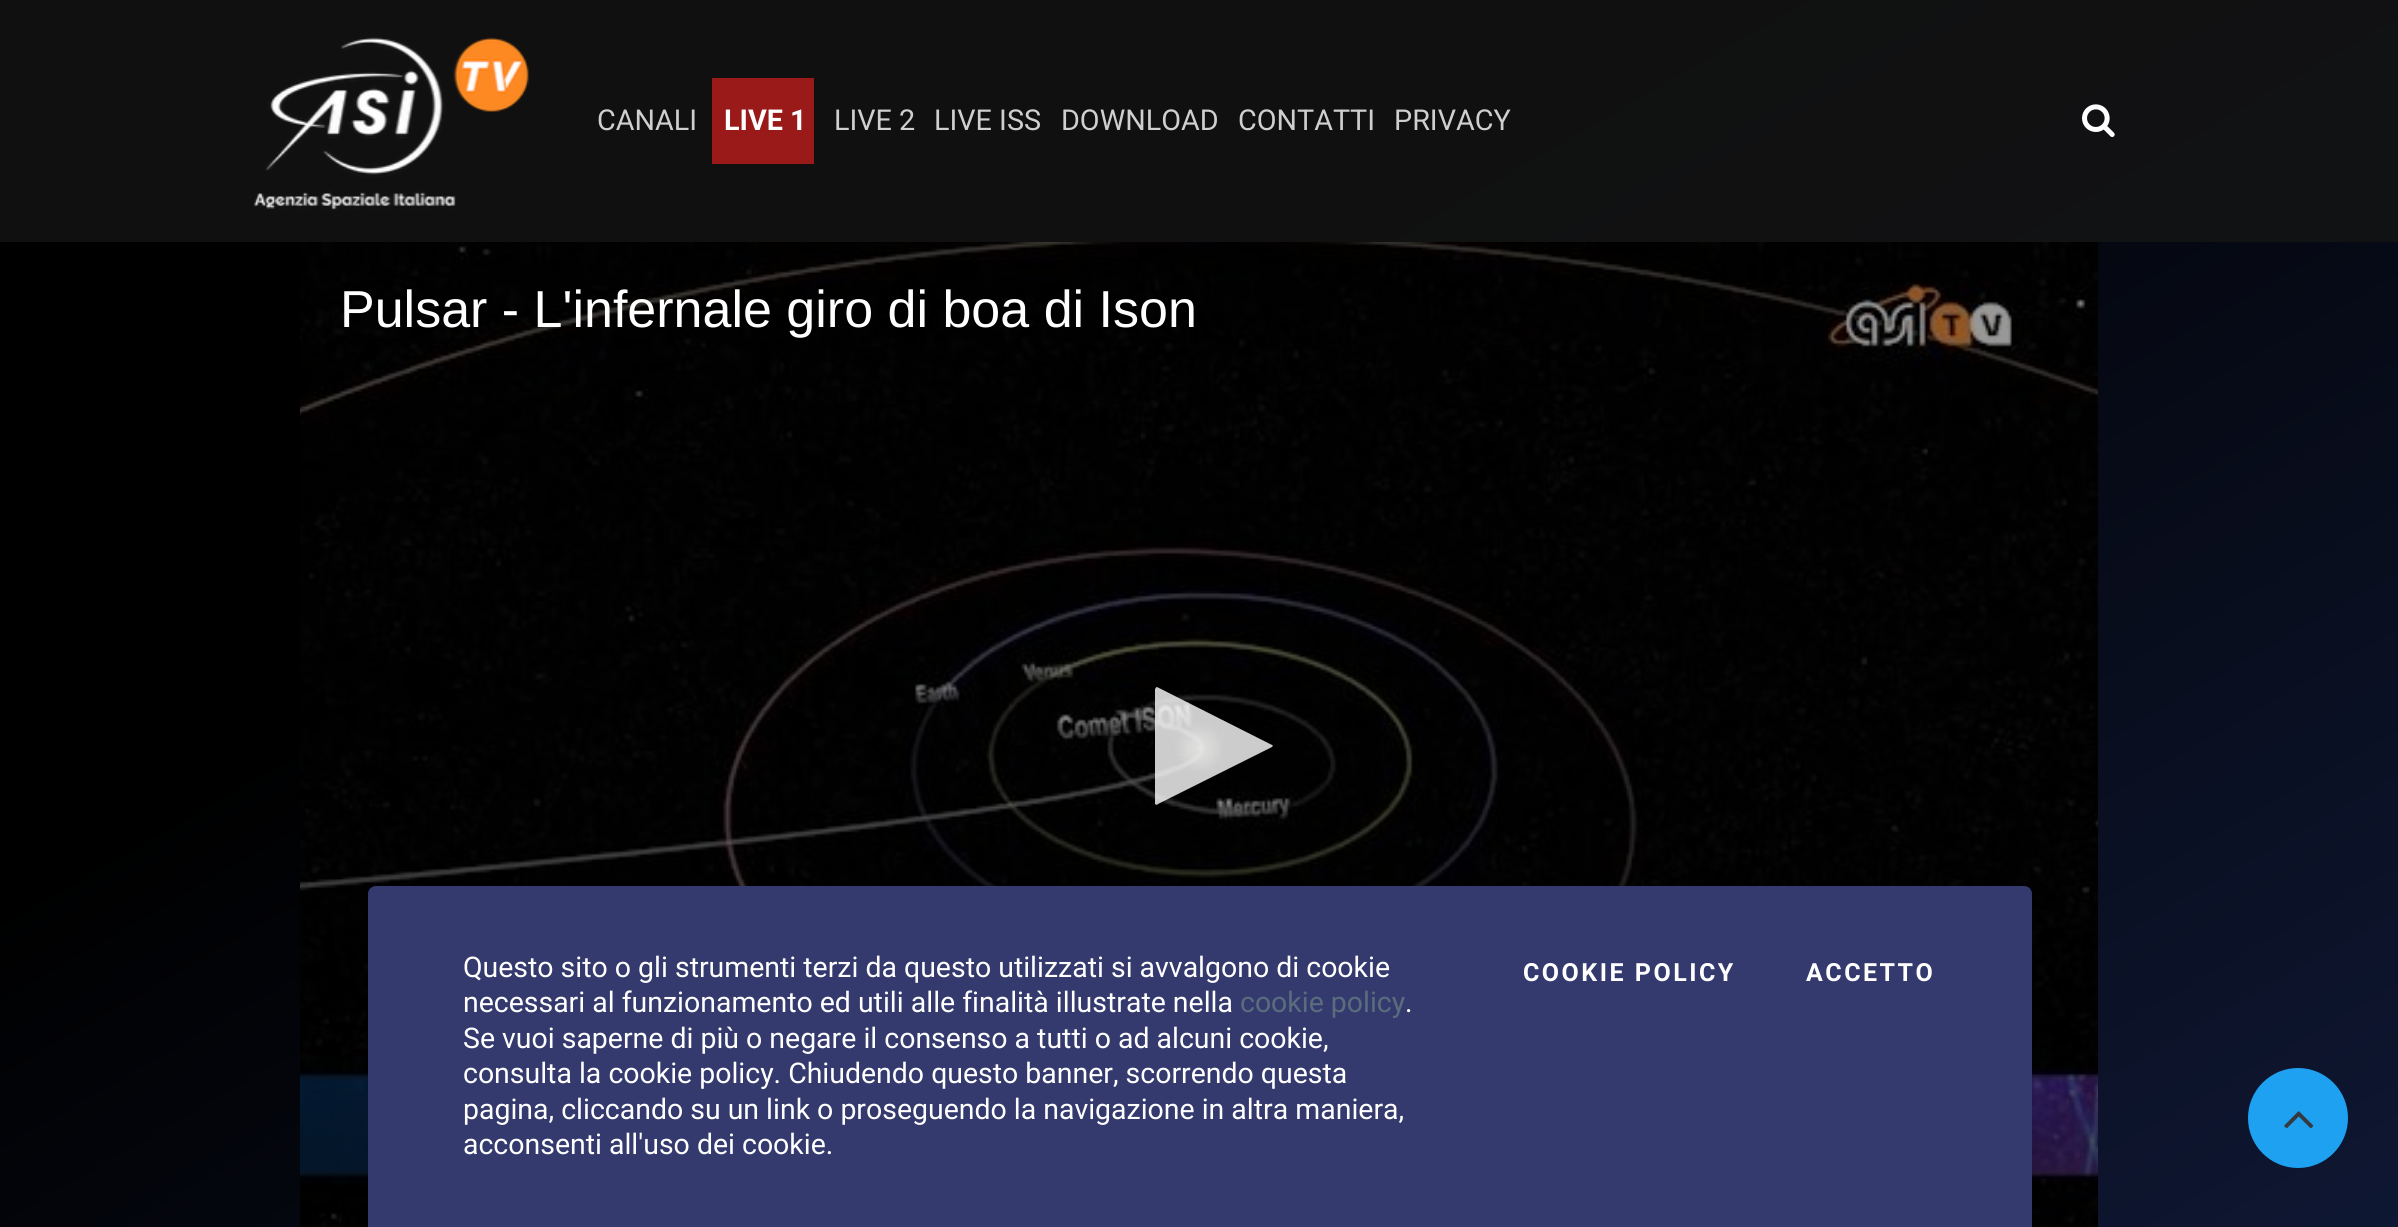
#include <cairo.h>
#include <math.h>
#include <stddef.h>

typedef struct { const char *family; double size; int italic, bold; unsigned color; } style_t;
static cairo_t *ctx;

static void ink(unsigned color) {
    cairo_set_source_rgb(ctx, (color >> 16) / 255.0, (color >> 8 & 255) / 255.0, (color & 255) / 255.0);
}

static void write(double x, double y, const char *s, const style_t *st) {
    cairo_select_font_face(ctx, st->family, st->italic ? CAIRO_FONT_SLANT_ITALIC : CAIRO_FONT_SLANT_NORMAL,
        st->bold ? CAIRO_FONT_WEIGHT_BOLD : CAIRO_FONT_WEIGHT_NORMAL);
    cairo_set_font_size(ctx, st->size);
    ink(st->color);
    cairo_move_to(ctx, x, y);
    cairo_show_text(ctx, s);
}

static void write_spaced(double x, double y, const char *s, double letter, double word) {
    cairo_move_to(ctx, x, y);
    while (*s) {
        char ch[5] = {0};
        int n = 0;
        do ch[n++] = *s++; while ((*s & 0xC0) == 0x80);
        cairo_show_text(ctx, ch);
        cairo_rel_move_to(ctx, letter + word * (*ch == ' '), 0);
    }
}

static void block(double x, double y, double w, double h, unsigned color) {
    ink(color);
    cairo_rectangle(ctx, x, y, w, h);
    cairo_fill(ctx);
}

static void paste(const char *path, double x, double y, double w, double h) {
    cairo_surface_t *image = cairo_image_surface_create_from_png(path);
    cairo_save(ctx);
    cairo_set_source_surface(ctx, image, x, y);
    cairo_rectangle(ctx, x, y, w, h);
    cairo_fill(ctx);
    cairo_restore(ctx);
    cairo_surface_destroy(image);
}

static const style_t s1 = {"Roboto", 28.75, 0, 0, 0xcfcfcf};
static const style_t s2 = {"Roboto", 28.75, 0, 1, 0xffffff};
static const style_t s3 = {"Liberation Sans", 52, 0, 0, 0xffffff};
static const style_t s4 = {"Roboto", 28.45, 0, 0, 0xffffff};
static const style_t s5 = {"Roboto", 28.45, 0, 0, 0x5a6c7d};

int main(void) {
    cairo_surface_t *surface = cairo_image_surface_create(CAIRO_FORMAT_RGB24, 2398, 1227);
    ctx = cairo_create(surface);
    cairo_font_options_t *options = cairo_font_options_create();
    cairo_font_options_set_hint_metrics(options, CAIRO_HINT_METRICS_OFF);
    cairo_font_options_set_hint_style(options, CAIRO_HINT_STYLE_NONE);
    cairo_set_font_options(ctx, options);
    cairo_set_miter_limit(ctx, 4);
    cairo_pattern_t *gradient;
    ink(0xffffff);
    cairo_paint(ctx);
    gradient = cairo_pattern_create_linear(236, -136, 2162, 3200);
    cairo_pattern_add_color_stop_rgba(gradient, 0.2, 0, 0, 0, 1);
    cairo_pattern_add_color_stop_rgba(gradient, 1, 0.118, 0.188, 0.412, 1);
    cairo_set_source(ctx, gradient);
    cairo_pattern_destroy(gradient);
    cairo_rectangle(ctx, 0, 242, 2398, 985);
    cairo_fill(ctx);
    gradient = cairo_pattern_create_linear(236, -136, 2162, 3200);
    cairo_pattern_add_color_stop_rgba(gradient, 0.2, 0.063, 0.063, 0.063, 1);
    cairo_pattern_add_color_stop_rgba(gradient, 1, 0.086, 0.102, 0.145, 1);
    cairo_set_source(ctx, gradient);
    cairo_pattern_destroy(gradient);
    cairo_rectangle(ctx, 0, 0, 2398, 242);
    cairo_fill(ctx);
    paste("pic1.png", 254, 37, 275, 173);
    write(597, 130, "CANALI", &s1);
    block(712, 78, 102, 86, 0x9a1919);
    write(724, 130, "LIVE 1", &s2);
    write(834, 130, "LIVE 2", &s1);
    write(934, 130, "LIVE ISS", &s1);
    write(1061, 130, "DOWNLOAD", &s1);
    write(1238, 130, "CONTATTI", &s1);
    write(1394, 130, "PRIVACY", &s1);
    paste("pic2.png", 2082, 104, 33, 33);
    paste("pic3.png", 300, 242, 1798, 985);
    write(340, 327, "Pulsar - L'infernale giro di boa di Ison", &s3);
    cairo_set_source_rgba(ctx, 1, 1, 1, 0.8);
    cairo_new_path(ctx);
    cairo_move_to(ctx, 1158, 804);
    cairo_curve_to(ctx, 1157, 805, 1156, 805, 1155, 804);
    cairo_line_to(ctx, 1155, 689);
    cairo_curve_to(ctx, 1156, 688, 1156, 687, 1157, 687);
    cairo_line_to(ctx, 1272, 745);
    cairo_curve_to(ctx, 1273, 745, 1273, 746, 1272, 747);
    cairo_close_path(ctx);
    cairo_fill(ctx);
    ink(0x1ea1f1);
    cairo_arc(ctx, 2298, 1118, 50, 0, 2 * M_PI);
    cairo_fill(ctx);
    paste("pic4.png", 2284, 1111, 30, 18);
    ink(0x353a6e);
    cairo_new_path(ctx);
    cairo_move_to(ctx, 376, 886);
    cairo_line_to(ctx, 2024, 886);
    cairo_curve_to(ctx, 2028.5, 886, 2032, 889.5, 2032, 894);
    cairo_line_to(ctx, 2032, 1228);
    cairo_line_to(ctx, 368, 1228);
    cairo_line_to(ctx, 368, 894);
    cairo_curve_to(ctx, 368, 889.5, 371.5, 886, 376, 886);
    cairo_close_path(ctx);
    cairo_fill(ctx);
    write(463, 977, "Questo sito o gli strumenti terzi da questo utilizzati si avvalgono di cookie", &s4);
    write(463, 1012, "necessari al funzionamento ed utili alle finalità illustrate nella", &s4);
    write(1240, 1012, "cookie policy", &s5);
    write(1405, 1012, ".", &s4);
    write(463, 1048, "Se vuoi saperne di più o negare il consenso a tutti o ad alcuni cookie,", &s4);
    write(463, 1083, "consulta la cookie policy. Chiudendo questo banner, scorrendo questa", &s4);
    write(463, 1119, "pagina, cliccando su un link o proseguendo la navigazione in altra maniera,", &s4);
    write(463, 1154, "acconsenti all'uso dei cookie.", &s4);
    cairo_select_font_face(ctx, "Roboto", CAIRO_FONT_SLANT_NORMAL, CAIRO_FONT_WEIGHT_BOLD);
    cairo_set_font_size(ctx, 25);
    write_spaced(1523, 981, "COOKIE POLICY", 2.5, 0);
    write_spaced(1806, 981, "ACCETTO", 2.5, 0);
    cairo_surface_write_to_png(surface, "screenshot.png");
    cairo_font_options_destroy(options);
    cairo_destroy(ctx);
    cairo_surface_destroy(surface);
    return 0;
}
